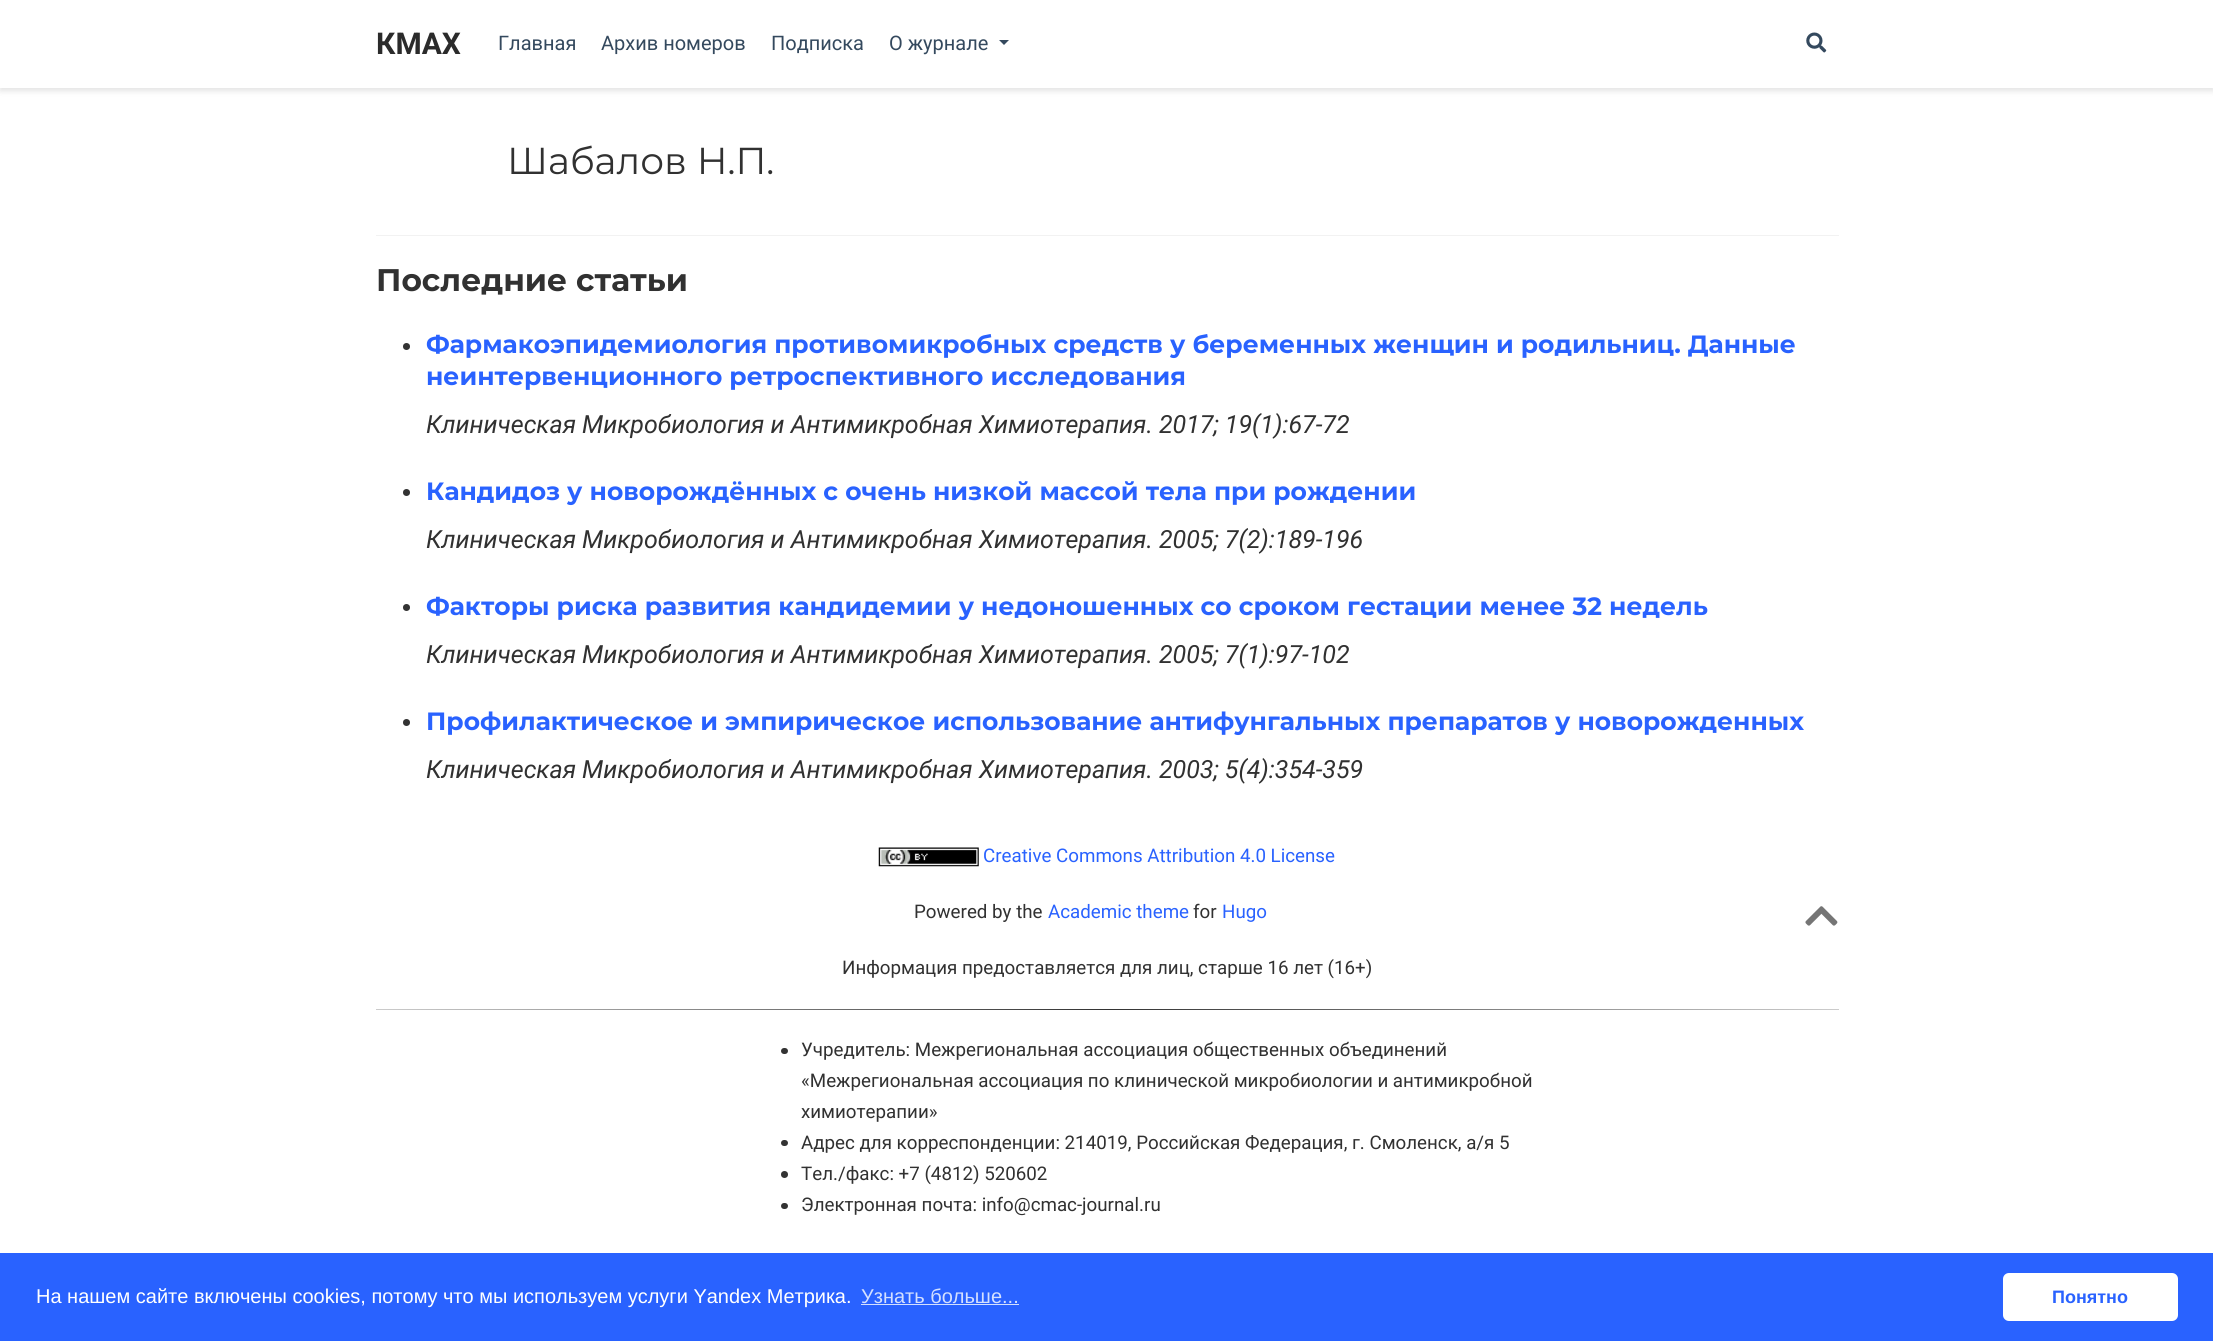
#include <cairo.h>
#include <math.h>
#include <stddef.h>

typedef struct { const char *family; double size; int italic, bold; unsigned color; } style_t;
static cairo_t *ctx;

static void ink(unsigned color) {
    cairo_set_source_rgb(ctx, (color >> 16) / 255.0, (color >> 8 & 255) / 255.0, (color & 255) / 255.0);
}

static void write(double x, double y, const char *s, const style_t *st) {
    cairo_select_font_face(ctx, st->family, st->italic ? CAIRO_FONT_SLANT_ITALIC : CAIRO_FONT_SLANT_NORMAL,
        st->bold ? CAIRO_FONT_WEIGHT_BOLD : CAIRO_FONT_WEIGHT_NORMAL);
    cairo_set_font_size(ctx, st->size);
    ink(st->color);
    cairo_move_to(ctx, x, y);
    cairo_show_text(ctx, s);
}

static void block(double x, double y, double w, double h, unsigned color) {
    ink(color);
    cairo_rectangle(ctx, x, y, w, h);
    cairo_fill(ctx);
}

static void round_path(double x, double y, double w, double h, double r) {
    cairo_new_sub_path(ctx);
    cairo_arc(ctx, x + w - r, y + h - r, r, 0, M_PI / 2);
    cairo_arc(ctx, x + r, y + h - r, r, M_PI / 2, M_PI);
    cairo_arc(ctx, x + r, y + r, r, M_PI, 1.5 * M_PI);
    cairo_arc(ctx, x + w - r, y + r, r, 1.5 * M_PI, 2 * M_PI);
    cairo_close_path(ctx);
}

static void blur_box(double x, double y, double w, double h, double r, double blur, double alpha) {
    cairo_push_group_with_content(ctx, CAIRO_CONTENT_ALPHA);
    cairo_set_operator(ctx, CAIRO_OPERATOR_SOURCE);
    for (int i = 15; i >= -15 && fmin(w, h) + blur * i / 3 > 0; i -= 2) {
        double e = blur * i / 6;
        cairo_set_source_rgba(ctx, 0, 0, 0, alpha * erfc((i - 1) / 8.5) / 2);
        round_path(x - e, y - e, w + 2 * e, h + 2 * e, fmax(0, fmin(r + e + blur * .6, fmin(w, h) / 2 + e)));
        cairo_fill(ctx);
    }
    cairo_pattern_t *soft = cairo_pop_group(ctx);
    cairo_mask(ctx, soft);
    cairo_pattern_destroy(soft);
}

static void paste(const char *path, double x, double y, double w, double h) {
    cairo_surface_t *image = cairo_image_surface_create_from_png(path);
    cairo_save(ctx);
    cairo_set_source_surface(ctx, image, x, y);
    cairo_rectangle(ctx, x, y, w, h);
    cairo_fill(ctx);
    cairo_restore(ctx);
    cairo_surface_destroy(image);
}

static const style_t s1 = {"Roboto", 30, 0, 1, 0x2b2b2b};
static const style_t s2 = {"Roboto", 20, 0, 0, 0x34495e};
static const style_t s3 = {"Montserrat", 37.5, 0, 0, 0x313131};
static const style_t s4 = {"Montserrat", 31.25, 0, 1, 0x313131};
static const style_t s5 = {"Montserrat", 25, 0, 1, 0x2962ff};
static const style_t s6 = {"Roboto", 25, 1, 0, 0x313131};
static const style_t s7 = {"Roboto", 18.75, 0, 0, 0x2962ff};
static const style_t s8 = {"Roboto", 18.75, 0, 0, 0x313131};
static const style_t s9 = {"Liberation Sans", 20, 0, 0, 0xffffff};
static const style_t s10 = {"Liberation Sans", 20, 0, 0, 0xd4e0ff};
static const style_t s11 = {"Liberation Sans", 18, 0, 1, 0x2962ff};

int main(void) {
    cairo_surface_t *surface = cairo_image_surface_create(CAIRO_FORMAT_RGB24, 2213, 1341);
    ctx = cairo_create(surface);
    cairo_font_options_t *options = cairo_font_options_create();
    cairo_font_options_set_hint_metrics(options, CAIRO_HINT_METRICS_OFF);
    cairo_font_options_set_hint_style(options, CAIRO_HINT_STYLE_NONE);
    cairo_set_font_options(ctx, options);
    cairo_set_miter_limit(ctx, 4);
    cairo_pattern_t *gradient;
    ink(0xffffff);
    cairo_paint(ctx);
    ink(0x000000);
    blur_box(0, 4, 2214, 87, 0, 3, 0.11);
    block(0, 0, 2213, 88, 0xffffff);
    write(376, 54, "КМАХ", &s1);
    write(498, 50, "Главная", &s2);
    write(601, 50, "Архив номеров", &s2);
    write(771, 50, "Подписка", &s2);
    write(889, 50, "О журнале", &s2);
    cairo_new_path(ctx);
    cairo_move_to(ctx, 999, 40);
    cairo_line_to(ctx, 1009, 40);
    cairo_line_to(ctx, 1004, 45);
    cairo_close_path(ctx);
    cairo_fill(ctx);
    paste("pic1.png", 1806, 32, 21, 21);
    write(507, 174, "Шабалов Н.П.", &s3);
    block(376, 235, 1463, 1, 0xf2f2f2);
    write(376, 291, "Последние статьи", &s4);
    ink(0x333333);
    cairo_new_path(ctx);
    cairo_arc(ctx, 406.5, 346.5, 3.5, 0, 2 * M_PI);
    cairo_fill(ctx);
    write(426, 353, "Фармакоэпидемиология противомикробных средств у беременных женщин и родильниц. Данные", &s5);
    write(426, 385, "неинтервенционного ретроспективного исследования", &s5);
    write(426, 433, "Клиническая Микробиология и Антимикробная Химиотерапия. 2017; 19(1):67-72", &s6);
    ink(0x333333);
    cairo_new_path(ctx);
    cairo_arc(ctx, 406.5, 492.5, 3.5, 0, 2 * M_PI);
    cairo_fill(ctx);
    write(426, 500, "Кандидоз у новорождённых с очень низкой массой тела при рождении", &s5);
    write(426, 548, "Клиническая Микробиология и Антимикробная Химиотерапия. 2005; 7(2):189-196", &s6);
    ink(0x333333);
    cairo_new_path(ctx);
    cairo_arc(ctx, 406.5, 607.5, 3.5, 0, 2 * M_PI);
    cairo_fill(ctx);
    write(426, 615, "Факторы риска развития кандидемии у недоношенных со сроком гестации менее 32 недель", &s5);
    write(426, 663, "Клиническая Микробиология и Антимикробная Химиотерапия. 2005; 7(1):97-102", &s6);
    ink(0x333333);
    cairo_new_path(ctx);
    cairo_arc(ctx, 406.5, 722.5, 3.5, 0, 2 * M_PI);
    cairo_fill(ctx);
    write(426, 730, "Профилактическое и эмпирическое использование антифунгальных препаратов у новорожденных", &s5);
    write(426, 778, "Клиническая Микробиология и Антимикробная Химиотерапия. 2003; 5(4):354-359", &s6);
    paste("pic2.png", 878, 847, 101, 20);
    write(983, 862, "Creative Commons Attribution 4.0 License", &s7);
    write(914, 918, "Powered by the", &s8);
    write(1048, 918, "Academic theme", &s7);
    write(1193, 918, "for", &s8);
    write(1222, 918, "Hugo", &s7);
    paste("pic3.png", 1805, 906, 33, 20);
    write(842, 974, "Информация предоставляется для лиц, старше 16 лет (16+)", &s8);
    gradient = cairo_pattern_create_linear(376, 1009, 1839, 1009);
    cairo_pattern_add_color_stop_rgba(gradient, 0, 0.8, 0.8, 0.8, 1);
    cairo_pattern_add_color_stop_rgba(gradient, 0.5, 0.2, 0.2, 0.2, 1);
    cairo_pattern_add_color_stop_rgba(gradient, 1, 0.8, 0.8, 0.8, 1);
    cairo_set_source(ctx, gradient);
    cairo_pattern_destroy(gradient);
    cairo_rectangle(ctx, 376, 1009, 1463, 1);
    cairo_fill(ctx);
    ink(0x333333);
    round_path(781, 1048, 7, 6, 3);
    cairo_fill(ctx);
    write(801, 1056, "Учредитель: Межрегиональная ассоциация общественных объединений", &s8);
    write(801, 1087, "«Межрегиональная ассоциация по клинической микробиологии и антимикробной", &s8);
    write(801, 1118, "химиотерапии»", &s8);
    ink(0x333333);
    round_path(781, 1140, 7, 6, 3);
    cairo_fill(ctx);
    write(801, 1149, "Адрес для корреспонденции: 214019, Российская Федерация, г. Смоленск, а/я 5", &s8);
    ink(0x333333);
    cairo_new_path(ctx);
    cairo_arc(ctx, 784.5, 1174.5, 3.5, 0, 2 * M_PI);
    cairo_fill(ctx);
    write(801, 1180, "Тел./факс: +7 (4812) 520602", &s8);
    ink(0x333333);
    round_path(781, 1203, 7, 6, 3);
    cairo_fill(ctx);
    write(801, 1211, "Электронная почта: info@cmac-journal.ru", &s8);
    block(0, 1253, 2213, 88, 0x2962ff);
    write(36, 1303, "На нашем сайте включены cookies, потому что мы используем услуги Yandex Метрика.", &s9);
    write(861, 1303, "Узнать больше...", &s10);
    block(861, 1304, 158, 1, 0xd4e0ff);
    ink(0xffffff);
    round_path(2003, 1273, 175, 48, 6);
    cairo_fill(ctx);
    write(2052, 1303, "Понятно", &s11);
    cairo_surface_write_to_png(surface, "screenshot.png");
    cairo_font_options_destroy(options);
    cairo_destroy(ctx);
    cairo_surface_destroy(surface);
    return 0;
}
